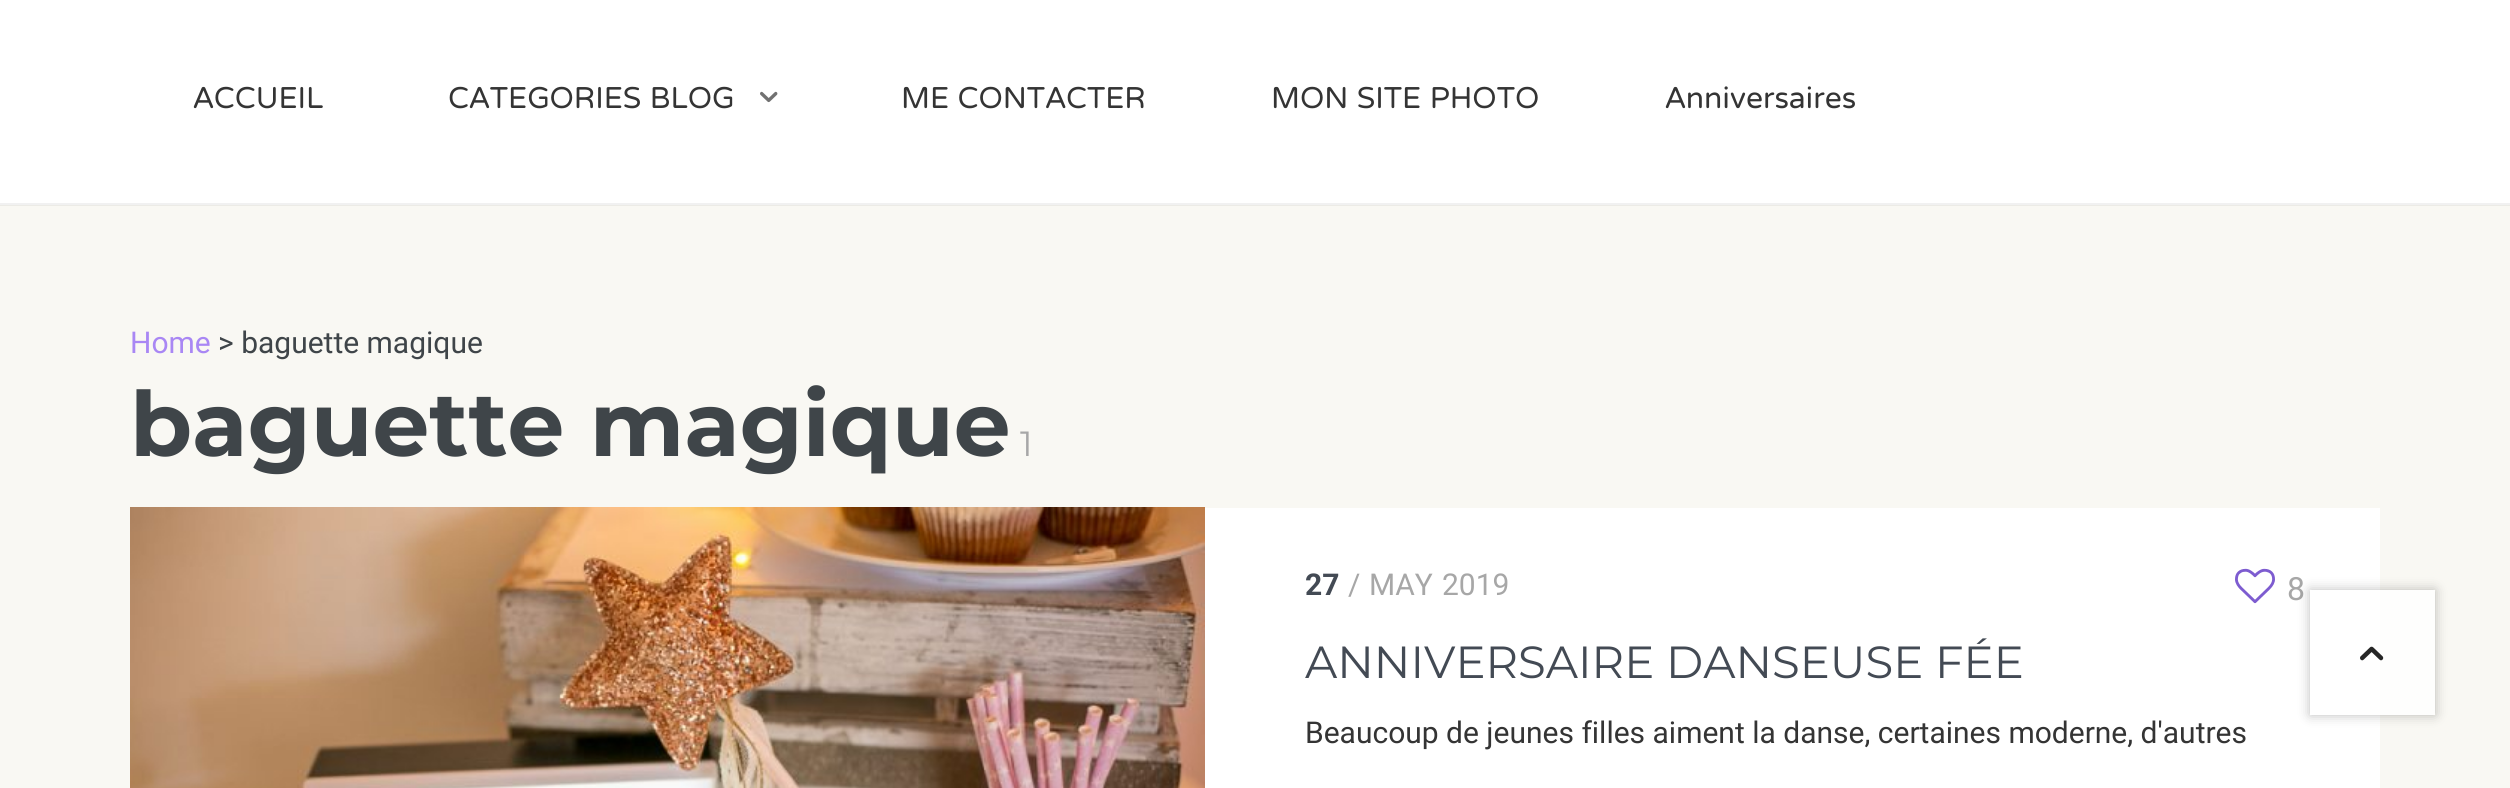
#include <cairo.h>
#include <math.h>
#include <stddef.h>

typedef struct { const char *family; double size; int italic, bold; unsigned color; } style_t;
static cairo_t *ctx;

static void ink(unsigned color) {
    cairo_set_source_rgb(ctx, (color >> 16) / 255.0, (color >> 8 & 255) / 255.0, (color & 255) / 255.0);
}

static void write(double x, double y, const char *s, const style_t *st) {
    cairo_select_font_face(ctx, st->family, st->italic ? CAIRO_FONT_SLANT_ITALIC : CAIRO_FONT_SLANT_NORMAL,
        st->bold ? CAIRO_FONT_WEIGHT_BOLD : CAIRO_FONT_WEIGHT_NORMAL);
    cairo_set_font_size(ctx, st->size);
    ink(st->color);
    cairo_move_to(ctx, x, y);
    cairo_show_text(ctx, s);
}

static void block(double x, double y, double w, double h, unsigned color) {
    ink(color);
    cairo_rectangle(ctx, x, y, w, h);
    cairo_fill(ctx);
}

static void round_path(double x, double y, double w, double h, double r) {
    cairo_new_sub_path(ctx);
    cairo_arc(ctx, x + w - r, y + h - r, r, 0, M_PI / 2);
    cairo_arc(ctx, x + r, y + h - r, r, M_PI / 2, M_PI);
    cairo_arc(ctx, x + r, y + r, r, M_PI, 1.5 * M_PI);
    cairo_arc(ctx, x + w - r, y + r, r, 1.5 * M_PI, 2 * M_PI);
    cairo_close_path(ctx);
}

static void blur_box(double x, double y, double w, double h, double r, double blur, double alpha) {
    cairo_push_group_with_content(ctx, CAIRO_CONTENT_ALPHA);
    cairo_set_operator(ctx, CAIRO_OPERATOR_SOURCE);
    for (int i = 15; i >= -15 && fmin(w, h) + blur * i / 3 > 0; i -= 2) {
        double e = blur * i / 6;
        cairo_set_source_rgba(ctx, 0, 0, 0, alpha * erfc((i - 1) / 8.5) / 2);
        round_path(x - e, y - e, w + 2 * e, h + 2 * e, fmax(0, fmin(r + e + blur * .6, fmin(w, h) / 2 + e)));
        cairo_fill(ctx);
    }
    cairo_pattern_t *soft = cairo_pop_group(ctx);
    cairo_mask(ctx, soft);
    cairo_pattern_destroy(soft);
}

static void paste(const char *path, double x, double y, double w, double h) {
    cairo_surface_t *image = cairo_image_surface_create_from_png(path);
    cairo_save(ctx);
    cairo_set_source_surface(ctx, image, x, y);
    cairo_rectangle(ctx, x, y, w, h);
    cairo_fill(ctx);
    cairo_restore(ctx);
    cairo_surface_destroy(image);
}

static const style_t s1 = {"NTR", 37.5, 0, 0, 0x343434};
static const style_t s2 = {"Roboto", 30, 0, 0, 0xa987f4};
static const style_t s3 = {"Roboto", 30, 0, 0, 0x3f4549};
static const style_t s4 = {"Montserrat", 90, 0, 1, 0x3f4549};
static const style_t s5 = {"Montserrat", 35, 0, 0, 0xa7a7a7};
static const style_t s6 = {"Roboto", 30, 0, 1, 0x434a54};
static const style_t s7 = {"Roboto", 30, 0, 0, 0xa7a7a7};
static const style_t s8 = {"Roboto", 32, 0, 0, 0xa7a7a7};
static const style_t s9 = {"Montserrat", 45, 0, 0, 0x434a54};
static const style_t s10 = {"Roboto", 30, 0, 0, 0x343434};

int main(void) {
    cairo_surface_t *surface = cairo_image_surface_create(CAIRO_FORMAT_RGB24, 2510, 788);
    ctx = cairo_create(surface);
    cairo_font_options_t *options = cairo_font_options_create();
    cairo_font_options_set_hint_metrics(options, CAIRO_HINT_METRICS_OFF);
    cairo_font_options_set_hint_style(options, CAIRO_HINT_STYLE_NONE);
    cairo_set_font_options(ctx, options);
    cairo_set_miter_limit(ctx, 4);
    ink(0xf9f8f3);
    cairo_paint(ctx);
    block(2380, 590, 55, 125, 0xfefefd);
    block(0, 205, 2510, 1, 0xecebe6);
    block(0, 0, 2510, 203, 0xffffff);
    block(0, 203, 2510, 2, 0xf1f1f1);
    write(193, 108, "ACCUEIL", &s1);
    write(448, 108, "CATEGORIES BLOG", &s1);
    paste("pic1.png", 760, 91, 18, 12);
    write(901, 108, "ME CONTACTER", &s1);
    write(1271, 108, "MON SITE PHOTO", &s1);
    write(1665, 108, "Anniversaires", &s1);
    write(130, 353, "Home", &s2);
    write(218, 353, "> baguette magique", &s3);
    write(130, 456, "baguette magique", &s4);
    write(1020, 456, "1", &s5);
    block(1205, 508, 1175, 280, 0xffffff);
    paste("pic2.png", 130, 507, 1075, 281);
    write(1305, 595, "27", &s6);
    write(1348, 595, "/", &s7);
    write(1369, 595, "MAY", &s7);
    write(1442, 595, "2019", &s7);
    paste("pic3.png", 2235, 568, 40, 36);
    write(2287, 600, "8", &s8);
    write(1305, 678, "ANNIVERSAIRE DANSEUSE FÉE", &s9);
    write(1305, 743, "Beaucoup de jeunes filles aiment la danse, certaines moderne, d'autres", &s10);
    cairo_save(ctx);
    cairo_set_fill_rule(ctx, CAIRO_FILL_RULE_EVEN_ODD);
    cairo_new_path(ctx);
    cairo_move_to(ctx, 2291, 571);
    cairo_line_to(ctx, 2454, 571);
    cairo_line_to(ctx, 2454, 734);
    cairo_line_to(ctx, 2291, 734);
    cairo_close_path(ctx);
    cairo_move_to(ctx, 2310, 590);
    cairo_line_to(ctx, 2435, 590);
    cairo_line_to(ctx, 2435, 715);
    cairo_line_to(ctx, 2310, 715);
    cairo_close_path(ctx);
    cairo_clip(ctx);
    ink(0x000000);
    blur_box(2310, 590, 125, 125, 0, 6, 0.26);
    cairo_restore(ctx);
    paste("pic4.png", 2360, 646, 24, 15);
    cairo_surface_write_to_png(surface, "screenshot.png");
    cairo_font_options_destroy(options);
    cairo_destroy(ctx);
    cairo_surface_destroy(surface);
    return 0;
}
